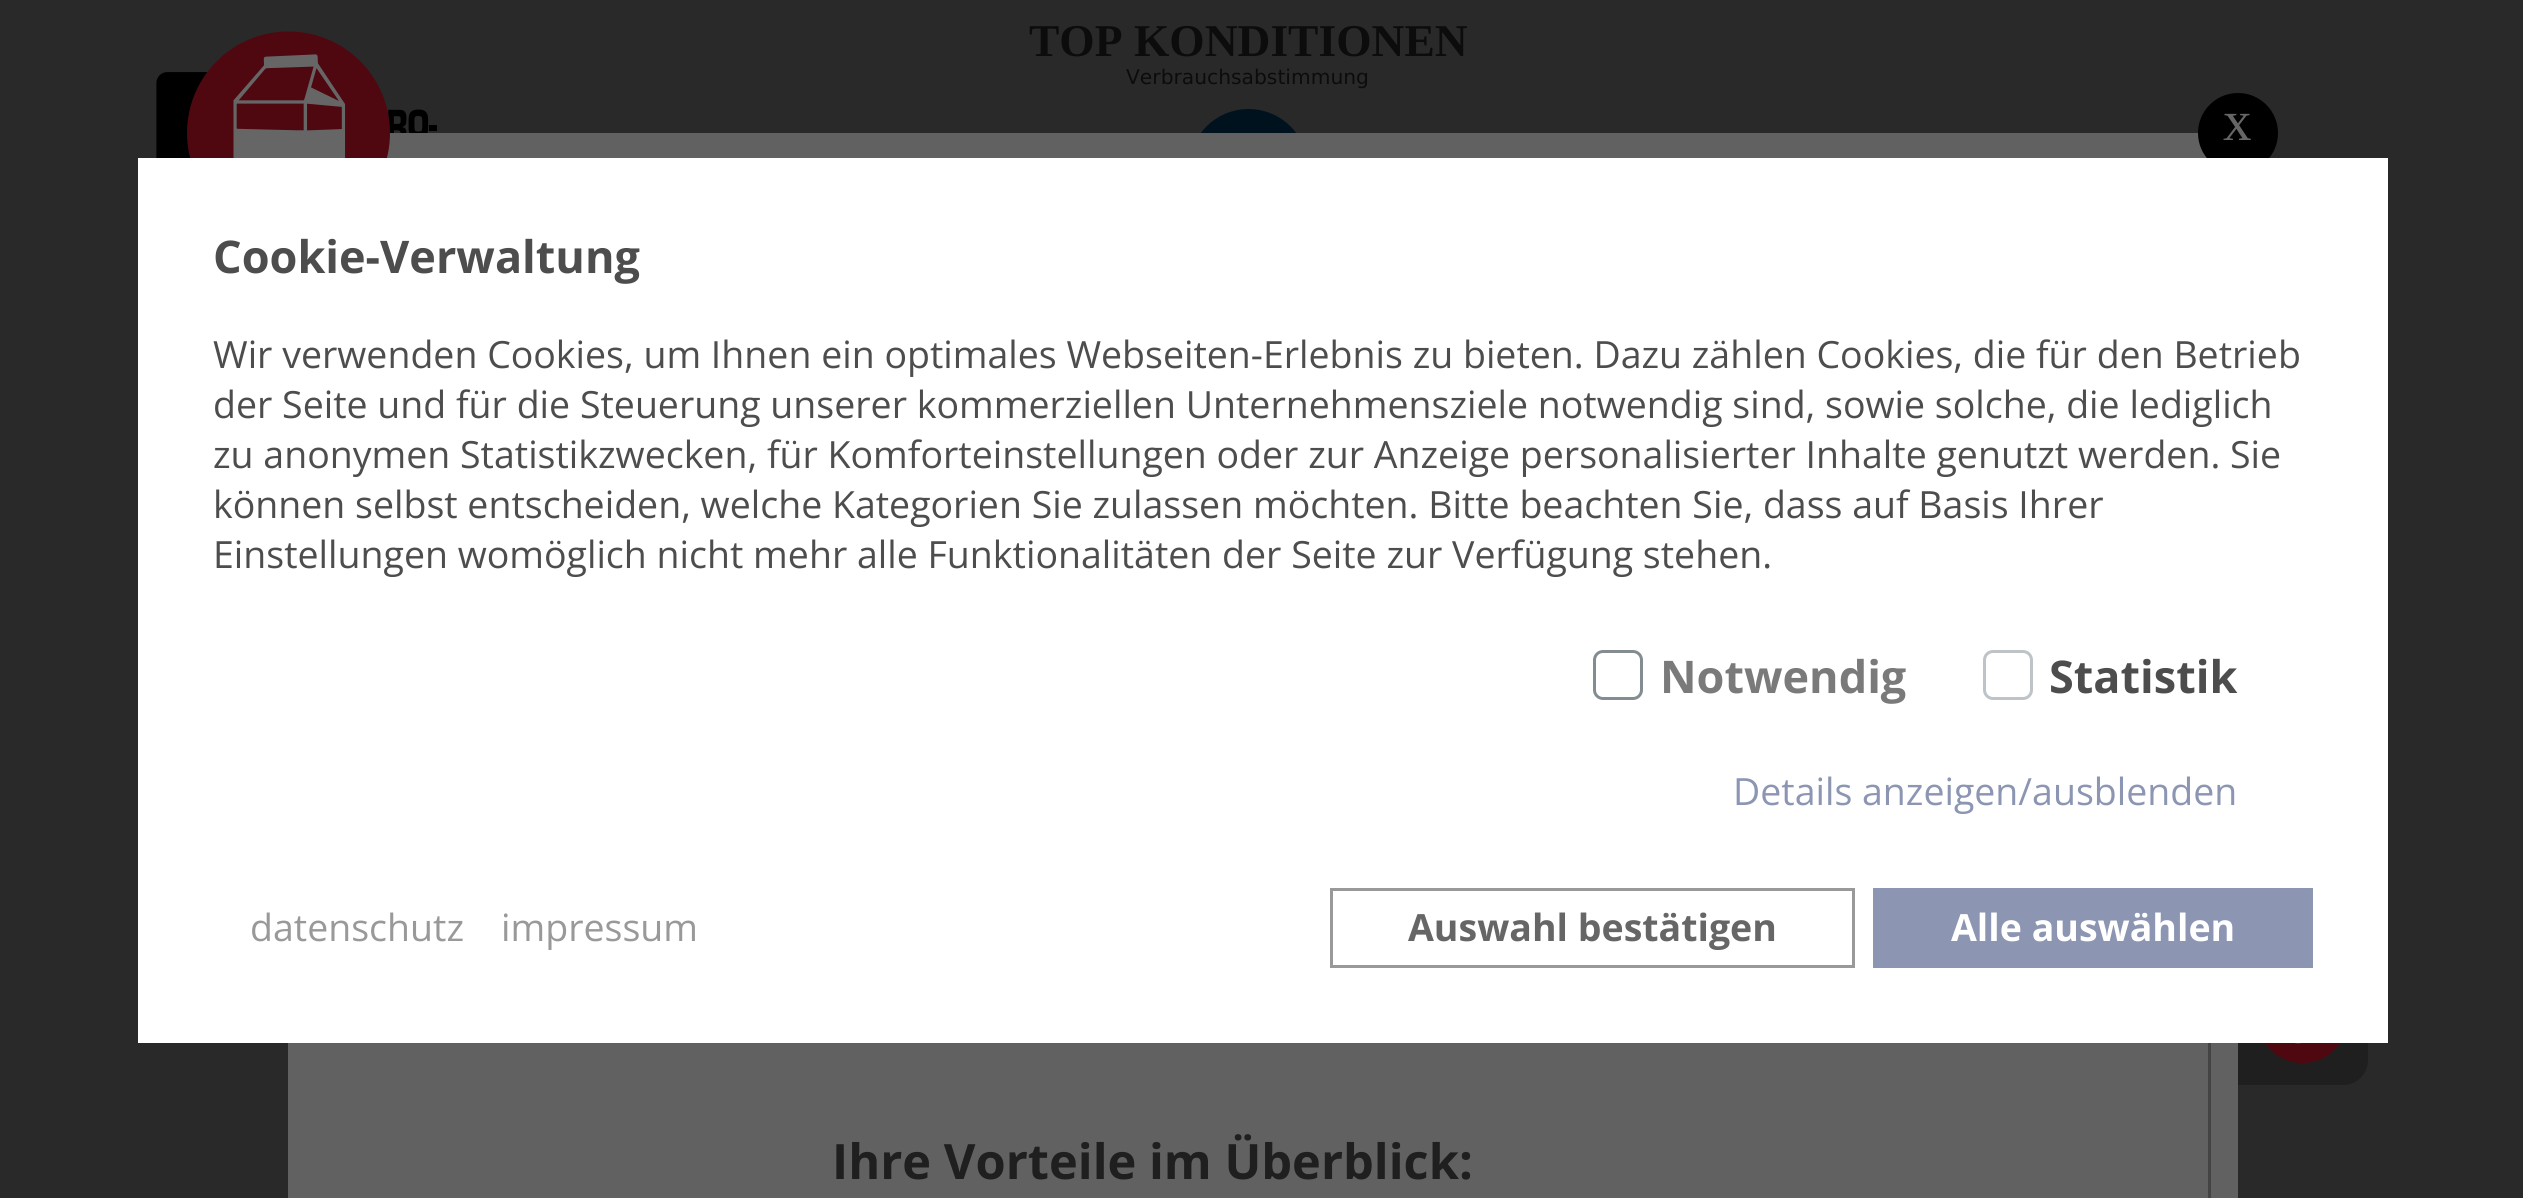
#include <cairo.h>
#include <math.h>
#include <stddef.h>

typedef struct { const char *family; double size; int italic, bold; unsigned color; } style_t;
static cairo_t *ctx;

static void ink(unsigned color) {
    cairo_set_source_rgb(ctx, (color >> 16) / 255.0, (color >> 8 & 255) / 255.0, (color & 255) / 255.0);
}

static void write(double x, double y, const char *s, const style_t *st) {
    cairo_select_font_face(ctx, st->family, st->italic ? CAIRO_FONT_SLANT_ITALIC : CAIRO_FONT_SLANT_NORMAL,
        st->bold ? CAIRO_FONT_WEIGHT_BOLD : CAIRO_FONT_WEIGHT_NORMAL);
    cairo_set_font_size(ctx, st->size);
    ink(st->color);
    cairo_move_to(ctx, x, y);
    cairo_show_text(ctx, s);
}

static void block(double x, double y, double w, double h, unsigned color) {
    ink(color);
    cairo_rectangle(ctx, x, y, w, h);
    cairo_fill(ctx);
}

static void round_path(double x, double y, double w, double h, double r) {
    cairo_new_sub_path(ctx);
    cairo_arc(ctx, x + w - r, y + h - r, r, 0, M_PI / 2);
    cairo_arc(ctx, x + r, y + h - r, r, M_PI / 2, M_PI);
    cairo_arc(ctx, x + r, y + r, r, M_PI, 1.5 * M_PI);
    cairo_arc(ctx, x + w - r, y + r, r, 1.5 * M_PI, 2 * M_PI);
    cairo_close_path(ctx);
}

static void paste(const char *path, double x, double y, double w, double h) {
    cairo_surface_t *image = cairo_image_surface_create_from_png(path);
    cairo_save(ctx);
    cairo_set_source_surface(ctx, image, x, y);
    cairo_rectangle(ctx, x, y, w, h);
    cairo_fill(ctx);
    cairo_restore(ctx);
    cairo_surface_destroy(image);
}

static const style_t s1 = {"Liberation Serif", 45.5, 0, 1, 0x0c0c0c};
static const style_t s2 = {"DejaVu Sans", 20.25, 0, 0, 0x0c0c0c};
static const style_t s3 = {"Liberation Serif", 57, 0, 0, 0x666666};
static const style_t s4 = {"Open Sans", 48.75, 0, 1, 0x1f1f1f};
static const style_t s5 = {"Open Sans", 45, 0, 1, 0x4d4d4d};
static const style_t s6 = {"Open Sans", 37.5, 0, 0, 0x4d4d4d};
static const style_t s7 = {"Open Sans", 45, 0, 1, 0x7a7a7a};
static const style_t s8 = {"Open Sans", 37.5, 0, 0, 0x8c96b3};
static const style_t s9 = {"Open Sans", 37.5, 0, 0, 0x999999};
static const style_t s10 = {"Open Sans", 37.5, 0, 1, 0x666666};
static const style_t s11 = {"Open Sans", 37.5, 0, 1, 0xffffff};

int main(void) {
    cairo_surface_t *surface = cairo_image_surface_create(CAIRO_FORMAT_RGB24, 2523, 1198);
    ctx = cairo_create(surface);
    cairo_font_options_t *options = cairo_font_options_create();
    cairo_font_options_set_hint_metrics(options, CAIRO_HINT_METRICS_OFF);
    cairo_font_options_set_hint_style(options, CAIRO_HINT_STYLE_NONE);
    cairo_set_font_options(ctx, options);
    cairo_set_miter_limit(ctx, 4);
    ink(0x292929);
    cairo_paint(ctx);
    write(1029, 56, "TOP KONDITIONEN", &s1);
    write(1126, 84, "Verbrauchsabstimmung", &s2);
    ink(0x00121d);
    cairo_new_path(ctx);
    cairo_arc(ctx, 1248.5, 168.5, 59.5, 0, 2 * M_PI);
    cairo_fill(ctx);
    paste("pic1.png", 156, 72, 281, 86);
    block(288, 133, 1950, 1065, 0x616161);
    paste("pic2.png", 187, 31, 203, 127);
    ink(0x000000);
    cairo_arc(ctx, 2238, 133, 40, 0, 2 * M_PI);
    cairo_fill(ctx);
    write(2223, 140, "x", &s3);
    ink(0x1f1f1f);
    cairo_new_path(ctx);
    cairo_move_to(ctx, 2238, 498);
    cairo_line_to(ctx, 2343, 498);
    cairo_curve_to(ctx, 2357, 498, 2368, 509, 2368, 523);
    cairo_line_to(ctx, 2368, 1060);
    cairo_curve_to(ctx, 2368, 1074, 2357, 1085, 2343, 1085);
    cairo_line_to(ctx, 2238, 1085);
    cairo_close_path(ctx);
    cairo_fill(ctx);
    paste("pic3.png", 2265, 1043, 76, 20);
    write(832, 1179, "Ihre Vorteile im Überblick:", &s4);
    block(2208, 1043, 3, 155, 0x444444);
    block(138, 158, 2250, 885, 0xffffff);
    write(213, 273, "Cookie-Verwaltung", &s5);
    write(213, 368, "Wir verwenden Cookies, um Ihnen ein optimales Webseiten-Erlebnis zu bieten. Dazu zählen Cookies, die für den Betrieb", &s6);
    write(213, 418, "der Seite und für die Steuerung unserer kommerziellen Unternehmensziele notwendig sind, sowie solche, die lediglich", &s6);
    write(213, 468, "zu anonymen Statistikzwecken, für Komforteinstellungen oder zur Anzeige personalisierter Inhalte genutzt werden. Sie", &s6);
    write(213, 518, "können selbst entscheiden, welche Kategorien Sie zulassen möchten. Bitte beachten Sie, dass auf Basis Ihrer", &s6);
    write(213, 568, "Einstellungen womöglich nicht mehr alle Funktionalitäten der Seite zur Verfügung stehen.", &s6);
    round_path(1594.5, 651.5, 47, 47, 8.5);
    ink(0x838c90);
    cairo_set_line_width(ctx, 3);
    cairo_stroke(ctx);
    write(1660, 693, "Notwendig", &s7);
    round_path(1984.5, 651.5, 47, 47, 8.5);
    ink(0xbdc3c7);
    cairo_stroke(ctx);
    write(2049, 693, "Statistik", &s5);
    write(1733, 805, "Details anzeigen/ausblenden", &s8);
    write(250, 941, "datenschutz", &s9);
    write(501, 941, "impressum", &s9);
    cairo_rectangle(ctx, 1331.5, 889.5, 522, 77);
    cairo_stroke(ctx);
    write(1408, 941, "Auswahl bestätigen", &s10);
    block(1873, 888, 440, 80, 0x8c96b3);
    write(1951, 941, "Alle auswählen", &s11);
    cairo_surface_write_to_png(surface, "screenshot.png");
    cairo_font_options_destroy(options);
    cairo_destroy(ctx);
    cairo_surface_destroy(surface);
    return 0;
}
